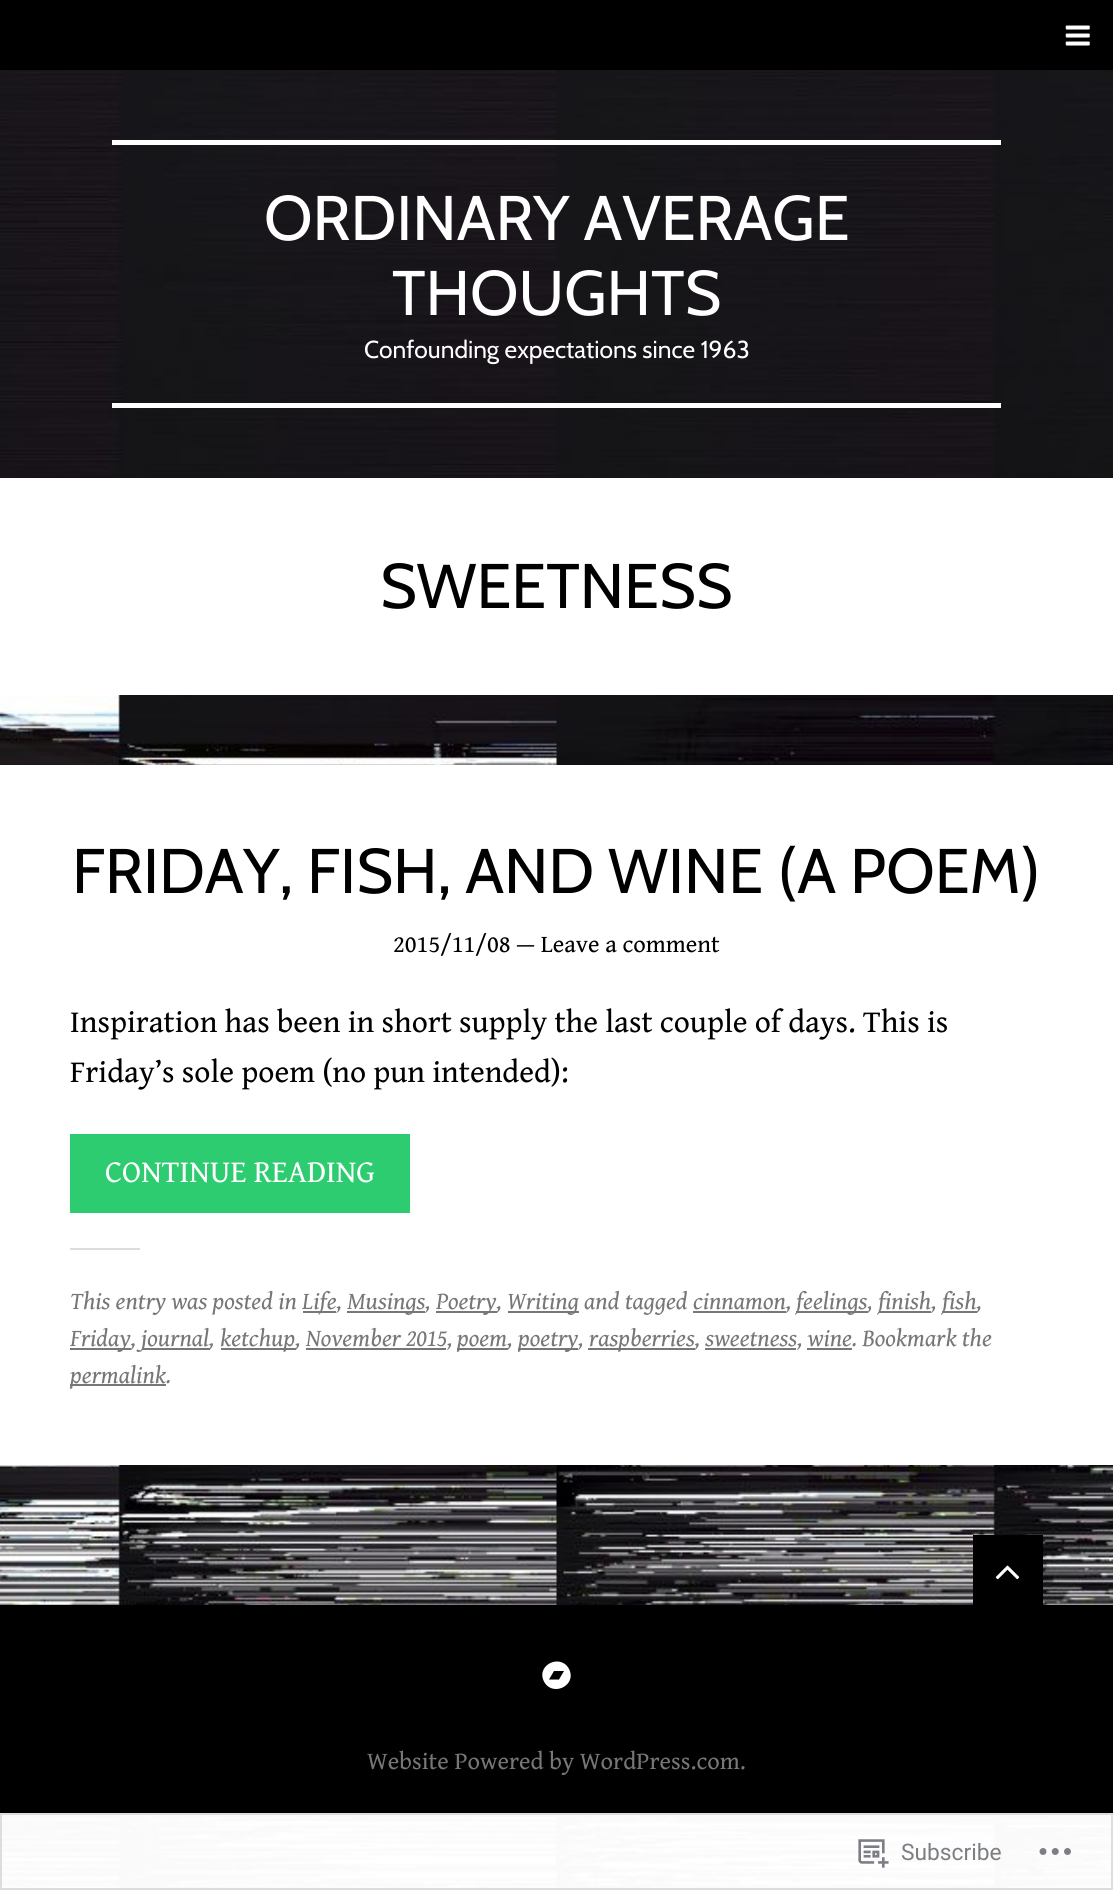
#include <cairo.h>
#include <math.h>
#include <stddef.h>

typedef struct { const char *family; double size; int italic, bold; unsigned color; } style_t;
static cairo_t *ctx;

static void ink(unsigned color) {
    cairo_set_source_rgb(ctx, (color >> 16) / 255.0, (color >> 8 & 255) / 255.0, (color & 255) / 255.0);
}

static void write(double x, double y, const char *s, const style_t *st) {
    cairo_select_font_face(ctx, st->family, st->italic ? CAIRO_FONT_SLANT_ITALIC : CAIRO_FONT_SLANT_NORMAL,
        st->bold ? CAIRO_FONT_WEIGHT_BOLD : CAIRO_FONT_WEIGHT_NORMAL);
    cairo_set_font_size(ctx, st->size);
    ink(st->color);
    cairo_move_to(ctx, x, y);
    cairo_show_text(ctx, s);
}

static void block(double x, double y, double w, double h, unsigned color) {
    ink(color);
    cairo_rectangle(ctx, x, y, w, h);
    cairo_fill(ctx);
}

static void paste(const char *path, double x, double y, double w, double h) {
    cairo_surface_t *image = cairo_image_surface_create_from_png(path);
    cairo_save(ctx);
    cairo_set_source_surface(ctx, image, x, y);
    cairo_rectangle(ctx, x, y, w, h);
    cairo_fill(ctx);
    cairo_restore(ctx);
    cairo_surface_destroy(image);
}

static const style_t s1 = {"Cabin", 63, 0, 0, 0xffffff};
static const style_t s2 = {"Cabin", 24.5, 0, 0, 0xffffff};
static const style_t s3 = {"Cabin", 63, 0, 0, 0x000000};
static const style_t s4 = {"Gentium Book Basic", 24.5, 0, 0, 0x000000};
static const style_t s5 = {"Gentium Book Basic", 31.5, 0, 0, 0x000000};
static const style_t s6 = {"Gentium Book Basic", 31.5, 0, 0, 0xffffff};
static const style_t s7 = {"Gentium Book Basic", 24.5, 1, 0, 0x777777};
static const style_t s8 = {"Gentium Book Basic", 24.5, 0, 0, 0x777777};
static const style_t s9 = {"Roboto", 22.75, 0, 0, 0x7b7f84};

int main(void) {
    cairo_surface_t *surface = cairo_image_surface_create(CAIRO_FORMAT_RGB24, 1113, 1890);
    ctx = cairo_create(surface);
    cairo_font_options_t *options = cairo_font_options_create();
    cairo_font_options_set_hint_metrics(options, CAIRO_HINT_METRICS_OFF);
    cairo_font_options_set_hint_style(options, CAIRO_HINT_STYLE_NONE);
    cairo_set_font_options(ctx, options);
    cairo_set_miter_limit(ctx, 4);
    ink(0xffffff);
    cairo_paint(ctx);
    paste("pic1.png", 0, 70, 1113, 1820);
    block(0, 0, 1113, 70, 0x000000);
    paste("pic2.png", 1065, 25, 25, 21);
    block(112, 140, 889, 5, 0xffffff);
    block(112, 403, 889, 5, 0xffffff);
    write(264, 240, "ORDINARY AVERAGE", &s1);
    write(392, 315, "THOUGHTS", &s1);
    write(364, 358, "Confounding expectations since 1963", &s2);
    block(0, 478, 1113, 217, 0xffffff);
    write(380, 608, "SWEETNESS", &s3);
    block(0, 765, 1113, 700, 0xffffff);
    write(72, 893, "FRIDAY, FISH, AND WINE (A POEM)", &s3);
    write(393, 952, "2015/11/08 — Leave a comment", &s4);
    write(70, 1032, "Inspiration has been in short supply the last couple of days. This is", &s5);
    write(70, 1082, "Friday’s sole poem (no pun intended):", &s5);
    block(70, 1134, 340, 79, 0x2ecc71);
    write(105, 1182, "CONTINUE READING", &s6);
    block(70, 1248, 70, 2, 0xdddddd);
    write(70, 1309, "This entry was posted in", &s7);
    block(303, 1311, 33, 2, 0x777777);
    write(302, 1309, "Life,", &s7);
    block(347, 1311, 78, 2, 0x777777);
    write(347, 1309, "Musings,", &s7);
    block(436, 1311, 61, 2, 0x777777);
    write(436, 1309, "Poetry,", &s7);
    block(508, 1311, 71, 2, 0x777777);
    write(507, 1309, "Writing and tagged cinnamon", &s7);
    block(693, 1311, 93, 2, 0x777777);
    write(786, 1309, ",", &s7);
    block(796, 1311, 72, 2, 0x777777);
    write(796, 1309, "feelings,", &s7);
    block(879, 1311, 52, 2, 0x777777);
    write(878, 1309, "finish,", &s7);
    block(942, 1311, 35, 2, 0x777777);
    write(942, 1309, "fish,", &s7);
    block(70, 1348, 61, 2, 0x777777);
    write(70, 1346, "Friday,", &s7);
    block(142, 1348, 68, 2, 0x777777);
    write(141, 1346, "journal,", &s7);
    block(221, 1348, 75, 2, 0x777777);
    write(220, 1346, "ketchup, November 2015,", &s7);
    block(457, 1348, 51, 2, 0x777777);
    write(457, 1346, "poem,", &s7);
    block(518, 1348, 60, 2, 0x777777);
    write(518, 1346, "poetry,", &s7);
    block(588, 1348, 107, 2, 0x777777);
    write(589, 1346, "raspberries, sweetness, wine. Bookmark the", &s7);
    block(306, 1348, 140, 2, 0x777777);
    block(705, 1348, 91, 2, 0x777777);
    block(807, 1348, 45, 2, 0x777777);
    block(70, 1384, 96, 2, 0x777777);
    write(70, 1383, "permalink.", &s7);
    block(973, 1535, 70, 70, 0x000000);
    paste("pic3.png", 995, 1565, 25, 15);
    block(0, 1605, 1113, 212, 0x000000);
    ink(0xffffff);
    cairo_new_path(ctx);
    cairo_move_to(ctx, 559, 1679.5);
    cairo_line_to(ctx, 564, 1671);
    cairo_line_to(ctx, 554, 1671);
    cairo_line_to(ctx, 549, 1679.5);
    cairo_close_path(ctx);
    cairo_move_to(ctx, 569.5, 1670);
    cairo_curve_to(ctx, 576.5, 1686.5, 551, 1697.5, 543.5, 1680.5);
    cairo_curve_to(ctx, 536.5, 1664, 562, 1653, 569.5, 1670);
    cairo_close_path(ctx);
    cairo_fill(ctx);
    write(367, 1769, "Website Powered by WordPress.com.", &s8);
    cairo_set_source_rgba(ctx, 1, 1, 1, 0.98);
    cairo_rectangle(ctx, 0, 1813, 1113, 77);
    cairo_fill(ctx);
    cairo_rectangle(ctx, 1, 1814, 1111, 75);
    cairo_set_source_rgba(ctx, 0.863, 0.863, 0.871, 0.98);
    cairo_stroke(ctx);
    paste("pic4.png", 858, 1839, 31, 29);
    write(901, 1860, "Subscribe", &s9);
    paste("pic5.png", 1039, 1848, 32, 7);
    cairo_surface_write_to_png(surface, "screenshot.png");
    cairo_font_options_destroy(options);
    cairo_destroy(ctx);
    cairo_surface_destroy(surface);
    return 0;
}
